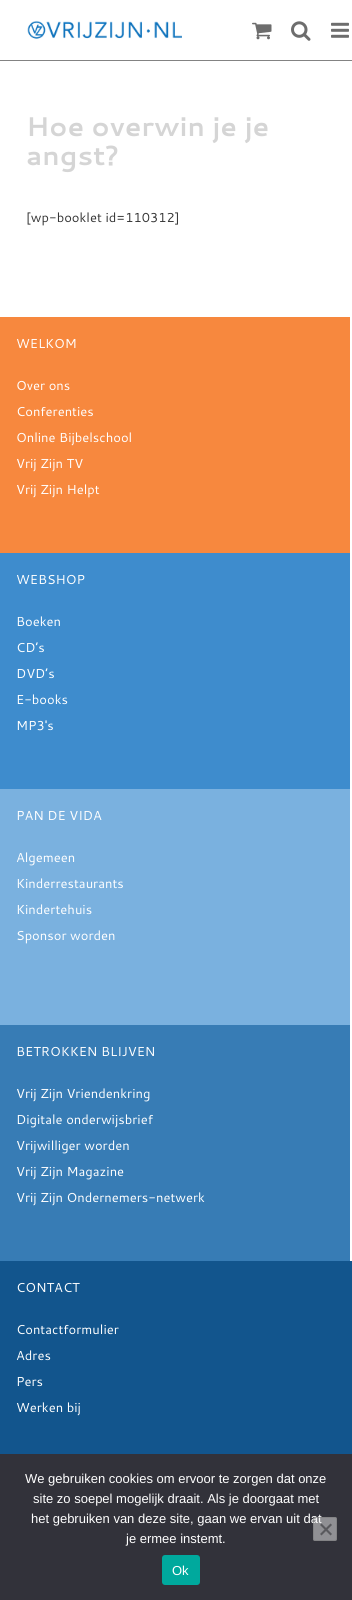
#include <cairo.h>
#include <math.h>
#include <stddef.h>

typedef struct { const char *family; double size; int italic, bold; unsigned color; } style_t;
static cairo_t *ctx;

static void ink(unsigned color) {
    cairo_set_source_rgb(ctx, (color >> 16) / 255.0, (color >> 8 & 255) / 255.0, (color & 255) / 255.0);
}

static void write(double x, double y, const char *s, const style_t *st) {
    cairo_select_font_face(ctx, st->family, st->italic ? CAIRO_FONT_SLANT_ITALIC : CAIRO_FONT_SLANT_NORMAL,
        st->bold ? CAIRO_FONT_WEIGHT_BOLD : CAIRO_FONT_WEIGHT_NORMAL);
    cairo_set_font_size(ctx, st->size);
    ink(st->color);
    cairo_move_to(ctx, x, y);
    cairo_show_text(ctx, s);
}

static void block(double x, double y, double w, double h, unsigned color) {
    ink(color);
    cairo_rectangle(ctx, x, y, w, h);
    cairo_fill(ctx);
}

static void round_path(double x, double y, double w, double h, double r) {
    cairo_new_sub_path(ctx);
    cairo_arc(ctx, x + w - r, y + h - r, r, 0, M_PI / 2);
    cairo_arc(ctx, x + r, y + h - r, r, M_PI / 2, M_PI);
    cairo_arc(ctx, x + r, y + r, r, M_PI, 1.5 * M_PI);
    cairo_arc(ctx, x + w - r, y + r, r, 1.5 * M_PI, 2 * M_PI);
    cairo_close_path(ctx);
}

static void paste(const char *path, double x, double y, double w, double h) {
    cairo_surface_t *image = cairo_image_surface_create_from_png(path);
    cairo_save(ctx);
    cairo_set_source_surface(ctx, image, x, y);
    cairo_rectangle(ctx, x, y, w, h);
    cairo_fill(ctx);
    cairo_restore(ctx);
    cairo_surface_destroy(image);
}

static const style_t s1 = {"Cantarell", 27, 0, 1, 0xd5d5d5};
static const style_t s2 = {"Cantarell", 13, 0, 0, 0x353535};
static const style_t s3 = {"Cantarell", 13, 0, 0, 0xffffff};
static const style_t s4 = {"Liberation Sans", 13, 0, 0, 0xffffff};

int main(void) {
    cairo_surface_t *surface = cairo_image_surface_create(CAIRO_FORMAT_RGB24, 352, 1600);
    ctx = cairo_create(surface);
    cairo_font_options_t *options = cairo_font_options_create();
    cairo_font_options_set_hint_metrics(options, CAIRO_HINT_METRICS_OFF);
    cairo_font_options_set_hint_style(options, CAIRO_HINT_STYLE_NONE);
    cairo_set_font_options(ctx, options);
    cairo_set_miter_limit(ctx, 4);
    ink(0xffffff);
    cairo_paint(ctx);
    block(0, 60, 352, 1, 0x838383);
    paste("pic1.png", 27, 20, 155, 19);
    paste("pic2.png", 252, 22, 20, 18);
    paste("pic3.png", 291, 21, 20, 20);
    paste("pic4.png", 331, 22, 18, 16);
    write(26, 136, "Hoe overwin je je", &s1);
    write(26, 165, "angst?", &s1);
    write(26, 222, "[wp-booklet id=110312]", &s2);
    block(0, 317, 350, 236, 0xf7883e);
    write(16, 348, "WELKOM", &s3);
    write(16, 390, "Over ons", &s3);
    write(16, 416, "Conferenties", &s3);
    write(16, 442, "Online Bijbelschool", &s3);
    write(16, 468, "Vrij Zijn TV", &s3);
    write(16, 494, "Vrij Zijn Helpt", &s3);
    block(0, 553, 350, 236, 0x3e8ccd);
    write(16, 584, "WEBSHOP", &s3);
    write(16, 626, "Boeken", &s3);
    write(16, 652, "CD’s", &s3);
    write(16, 678, "DVD’s", &s3);
    write(16, 704, "E-books", &s3);
    write(16, 730, "MP3's", &s3);
    block(0, 789, 350, 236, 0x7ab1df);
    write(16, 820, "PAN DE VIDA", &s3);
    write(16, 862, "Algemeen", &s3);
    write(16, 888, "Kinderrestaurants", &s3);
    write(16, 914, "Kindertehuis", &s3);
    write(16, 940, "Sponsor worden", &s3);
    block(0, 1025, 350, 236, 0x377cb5);
    write(16, 1056, "BETROKKEN BLIJVEN", &s3);
    write(16, 1098, "Vrij Zijn Vriendenkring", &s3);
    write(16, 1124, "Digitale onderwijsbrief", &s3);
    write(16, 1150, "Vrijwilliger worden", &s3);
    write(16, 1176, "Vrij Zijn Magazine", &s3);
    write(16, 1202, "Vrij Zijn Ondernemers-netwerk", &s3);
    block(0, 1261, 352, 193, 0x12558d);
    write(16, 1292, "CONTACT", &s3);
    write(16, 1334, "Contactformulier", &s3);
    write(16, 1360, "Adres", &s3);
    write(16, 1386, "Pers", &s3);
    write(16, 1412, "Werken bij", &s3);
    block(0, 1454, 352, 146, 0x32323a);
    write(25, 1483, "We gebruiken cookies om ervoor te zorgen dat onze", &s4);
    write(33, 1503, "site zo soepel mogelijk draait. Als je doorgaat met", &s4);
    write(31, 1523, "het gebruiken van deze site, gaan we ervan uit dat", &s4);
    write(126, 1543, "je ermee instemt.", &s4);
    cairo_set_source_rgba(ctx, 0.937, 0.937, 0.937, 0.5);
    round_path(313, 1517, 24, 24, 2);
    cairo_fill(ctx);
    round_path(313.5, 1517.5, 23, 23, 1.5);
    cairo_set_source_rgba(ctx, 0.463, 0.463, 0.463, 0.5);
    cairo_set_line_width(ctx, 1);
    cairo_stroke(ctx);
    ink(0x59595d);
    cairo_new_path(ctx);
    cairo_move_to(ctx, 330.5, 1523.5);
    cairo_line_to(ctx, 332, 1525);
    cairo_line_to(ctx, 321.5, 1535.5);
    cairo_line_to(ctx, 320, 1534);
    cairo_close_path(ctx);
    cairo_fill(ctx);
    cairo_new_path(ctx);
    cairo_move_to(ctx, 320, 1525);
    cairo_line_to(ctx, 321.5, 1523.5);
    cairo_line_to(ctx, 332, 1534);
    cairo_line_to(ctx, 330.5, 1535.5);
    cairo_close_path(ctx);
    cairo_fill(ctx);
    ink(0x00a99d);
    round_path(162, 1555, 38, 30, 3);
    cairo_fill(ctx);
    write(172, 1575, "Ok", &s4);
    cairo_surface_write_to_png(surface, "screenshot.png");
    cairo_font_options_destroy(options);
    cairo_destroy(ctx);
    cairo_surface_destroy(surface);
    return 0;
}
